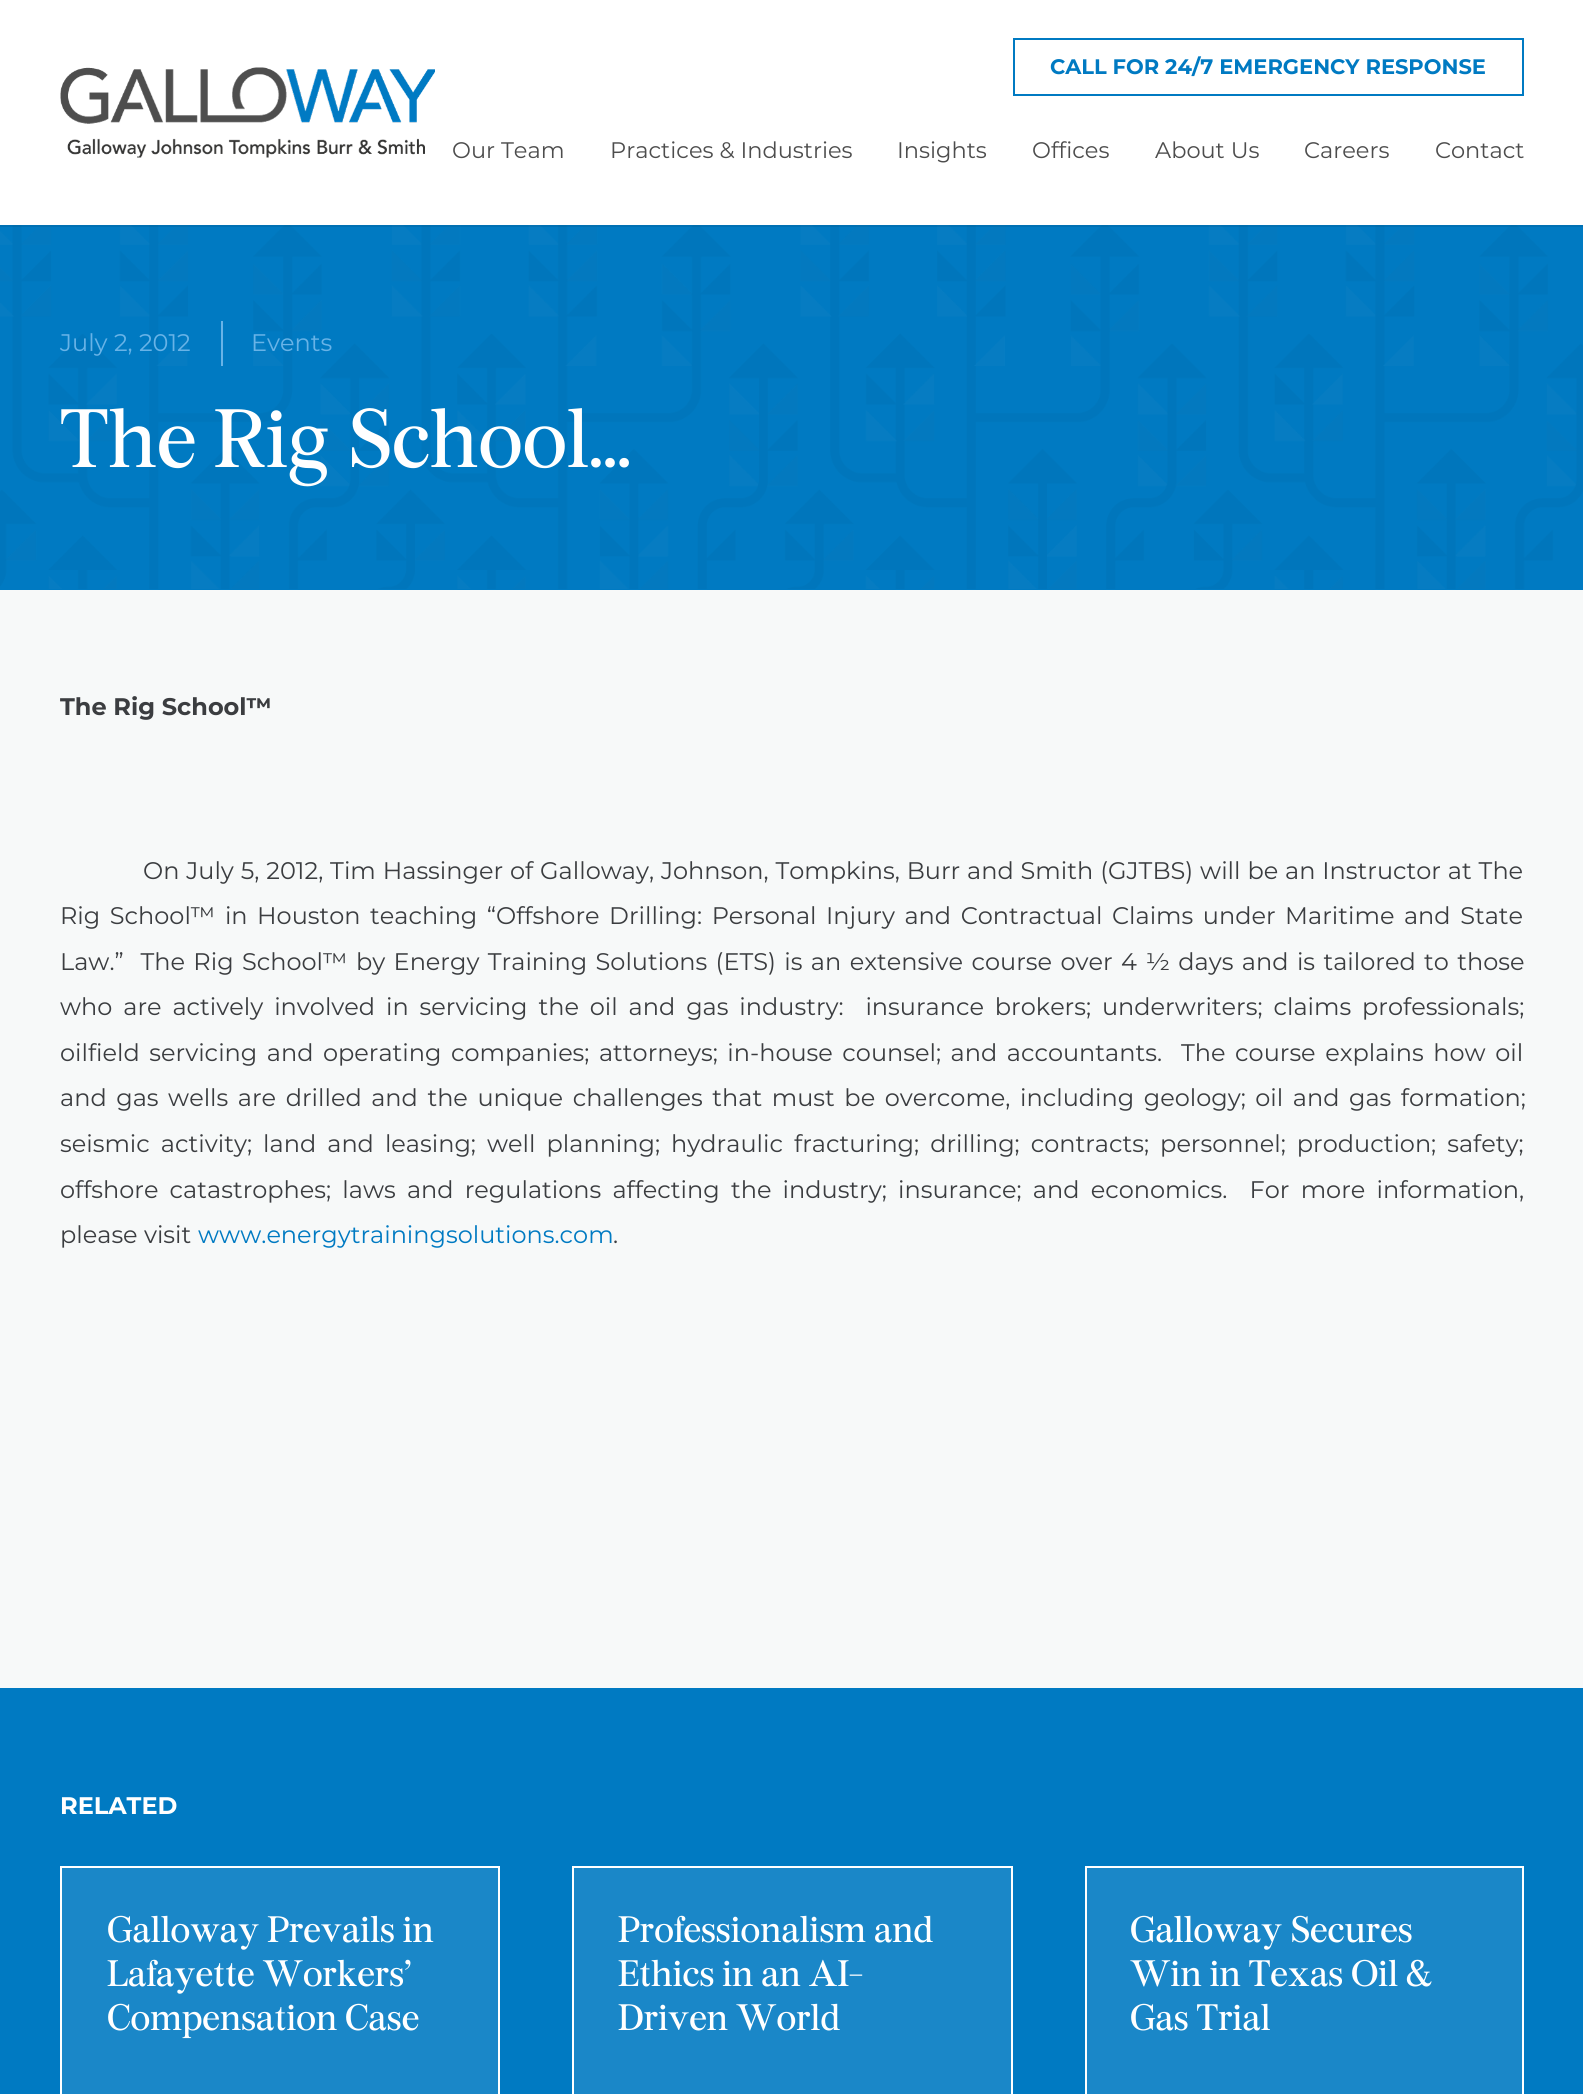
#include <cairo.h>
#include <math.h>
#include <stddef.h>

typedef struct { const char *family; double size; int italic, bold; unsigned color; } style_t;
static cairo_t *ctx;

static void ink(unsigned color) {
    cairo_set_source_rgb(ctx, (color >> 16) / 255.0, (color >> 8 & 255) / 255.0, (color & 255) / 255.0);
}

static void write(double x, double y, const char *s, const style_t *st) {
    cairo_select_font_face(ctx, st->family, st->italic ? CAIRO_FONT_SLANT_ITALIC : CAIRO_FONT_SLANT_NORMAL,
        st->bold ? CAIRO_FONT_WEIGHT_BOLD : CAIRO_FONT_WEIGHT_NORMAL);
    cairo_set_font_size(ctx, st->size);
    ink(st->color);
    cairo_move_to(ctx, x, y);
    cairo_show_text(ctx, s);
}

static void write_spaced(double x, double y, const char *s, double letter, double word) {
    cairo_move_to(ctx, x, y);
    while (*s) {
        char ch[5] = {0};
        int n = 0;
        do ch[n++] = *s++; while ((*s & 0xC0) == 0x80);
        cairo_show_text(ctx, ch);
        cairo_rel_move_to(ctx, letter + word * (*ch == ' '), 0);
    }
}

static void block(double x, double y, double w, double h, unsigned color) {
    ink(color);
    cairo_rectangle(ctx, x, y, w, h);
    cairo_fill(ctx);
}

static void paste(const char *path, double x, double y, double w, double h) {
    cairo_surface_t *image = cairo_image_surface_create_from_png(path);
    cairo_save(ctx);
    cairo_set_source_surface(ctx, image, x, y);
    cairo_rectangle(ctx, x, y, w, h);
    cairo_fill(ctx);
    cairo_restore(ctx);
    cairo_surface_destroy(image);
}

static const style_t s1 = {"Montserrat", 21, 0, 1, 0x007ac2};
static const style_t s2 = {"Montserrat", 22.5, 0, 0, 0x4d4d4d};
static const style_t s3 = {"Montserrat", 24, 0, 0, 0x68b3e7};
static const style_t s4 = {"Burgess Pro", 82.5, 0, 0, 0xffffff};
static const style_t s5 = {"Montserrat", 24, 0, 1, 0x3b3d40};
static const style_t s6 = {"Montserrat", 24, 0, 0, 0x3b3d40};
static const style_t s7 = {"Montserrat", 24, 0, 0, 0x007ac2};
static const style_t s8 = {"Montserrat", 24, 0, 1, 0xffffff};
static const style_t s9 = {"Burgess Pro", 36.75, 0, 0, 0xffffff};

int main(void) {
    cairo_surface_t *surface = cairo_image_surface_create(CAIRO_FORMAT_RGB24, 1583, 2094);
    ctx = cairo_create(surface);
    cairo_font_options_t *options = cairo_font_options_create();
    cairo_font_options_set_hint_metrics(options, CAIRO_HINT_METRICS_OFF);
    cairo_font_options_set_hint_style(options, CAIRO_HINT_STYLE_NONE);
    cairo_set_font_options(ctx, options);
    cairo_set_miter_limit(ctx, 4);
    ink(0xf7f9f9);
    cairo_paint(ctx);
    block(0, 225, 1583, 365, 0x007ac2);
    paste("pic2.png", 0, 225, 1583, 364);
    cairo_set_source_rgba(ctx, 0, 0, 0, 0.08);
    cairo_rectangle(ctx, 0, 225, 1583, 2);
    cairo_fill(ctx);
    block(0, 0, 1583, 225, 0xffffff);
    paste("pic1.png", 60, 67, 375, 91);
    cairo_rectangle(ctx, 1014, 39, 509, 56);
    ink(0x007ac2);
    cairo_stroke(ctx);
    write(1050, 74, "CALL FOR 24/7 EMERGENCY RESPONSE", &s1);
    write(452, 158, "Our Team", &s2);
    write(610, 158, "Practices & Industries", &s2);
    write(897, 158, "Insights", &s2);
    write(1032, 158, "Offices", &s2);
    write(1155, 158, "About Us", &s2);
    write(1304, 158, "Careers", &s2);
    write(1435, 158, "Contact", &s2);
    block(221, 321, 2, 45, 0x68b3e7);
    write(60, 351, "July 2, 2012", &s3);
    write(251, 351, "Events", &s3);
    write(60, 467, "The Rig School…", &s4);
    write(60, 715, "The Rig School™", &s5);
    cairo_select_font_face(ctx, "Montserrat", CAIRO_FONT_SLANT_NORMAL, CAIRO_FONT_WEIGHT_NORMAL);
    write_spaced(143, 879, "On July 5, 2012, Tim Hassinger of Galloway, Johnson, Tompkins, Burr and Smith (GJTBS) will be an Instructor at The", 0, 0.6);
    write_spaced(60, 924, "Rig School™ in Houston teaching “Offshore Drilling: Personal Injury and Contractual Claims under Maritime and State", 0, 3.25);
    write_spaced(60, 970, "Law.”  The Rig School™ by Energy Training Solutions (ETS) is an extensive course over 4 ½ days and is tailored to those", 0, 2.1);
    write_spaced(60, 1015, "who are actively involved in servicing the oil and gas industry:  insurance brokers; underwriters; claims professionals;", 0, 4.6);
    write_spaced(60, 1061, "oilfield servicing and operating companies; attorneys; in-house counsel; and accountants.  The course explains how oil", 0, 3.25);
    write_spaced(60, 1106, "and gas wells are drilled and the unique challenges that must be overcome, including geology; oil and gas formation;", 0, 3.25);
    write_spaced(60, 1152, "seismic activity; land and leasing; well planning; hydraulic fracturing; drilling; contracts; personnel; production; safety;", 0, 4.75);
    write_spaced(60, 1198, "offshore catastrophes; laws and regulations affecting the industry; insurance; and economics.  For more information,", 0, 4.9);
    write(60, 1243, "please visit", &s6);
    write(198, 1243, "www.energytrainingsolutions.com", &s7);
    write(613, 1243, ".", &s6);
    block(0, 1688, 1583, 406, 0x007ac2);
    write(60, 1814, "RELATED", &s8);
    ink(0x1a87c8);
    cairo_rectangle(ctx, 61, 1867, 438, 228);
    cairo_fill_preserve(ctx);
    ink(0xffffff);
    cairo_stroke(ctx);
    write(107, 1942, "Galloway Prevails in", &s9);
    write(107, 1986, "Lafayette Workers’", &s9);
    write(107, 2030, "Compensation Case", &s9);
    ink(0x1a87c8);
    cairo_rectangle(ctx, 573, 1867, 439, 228);
    cairo_fill_preserve(ctx);
    ink(0xffffff);
    cairo_stroke(ctx);
    write(618, 1942, "Professionalism and", &s9);
    write(618, 1986, "Ethics in an AI-", &s9);
    write(618, 2030, "Driven World", &s9);
    ink(0x1a87c8);
    cairo_rectangle(ctx, 1086, 1867, 437, 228);
    cairo_fill_preserve(ctx);
    ink(0xffffff);
    cairo_stroke(ctx);
    write(1130, 1942, "Galloway Secures", &s9);
    write(1130, 1986, "Win in Texas Oil &", &s9);
    write(1130, 2030, "Gas Trial", &s9);
    cairo_surface_write_to_png(surface, "screenshot.png");
    cairo_font_options_destroy(options);
    cairo_destroy(ctx);
    cairo_surface_destroy(surface);
    return 0;
}
